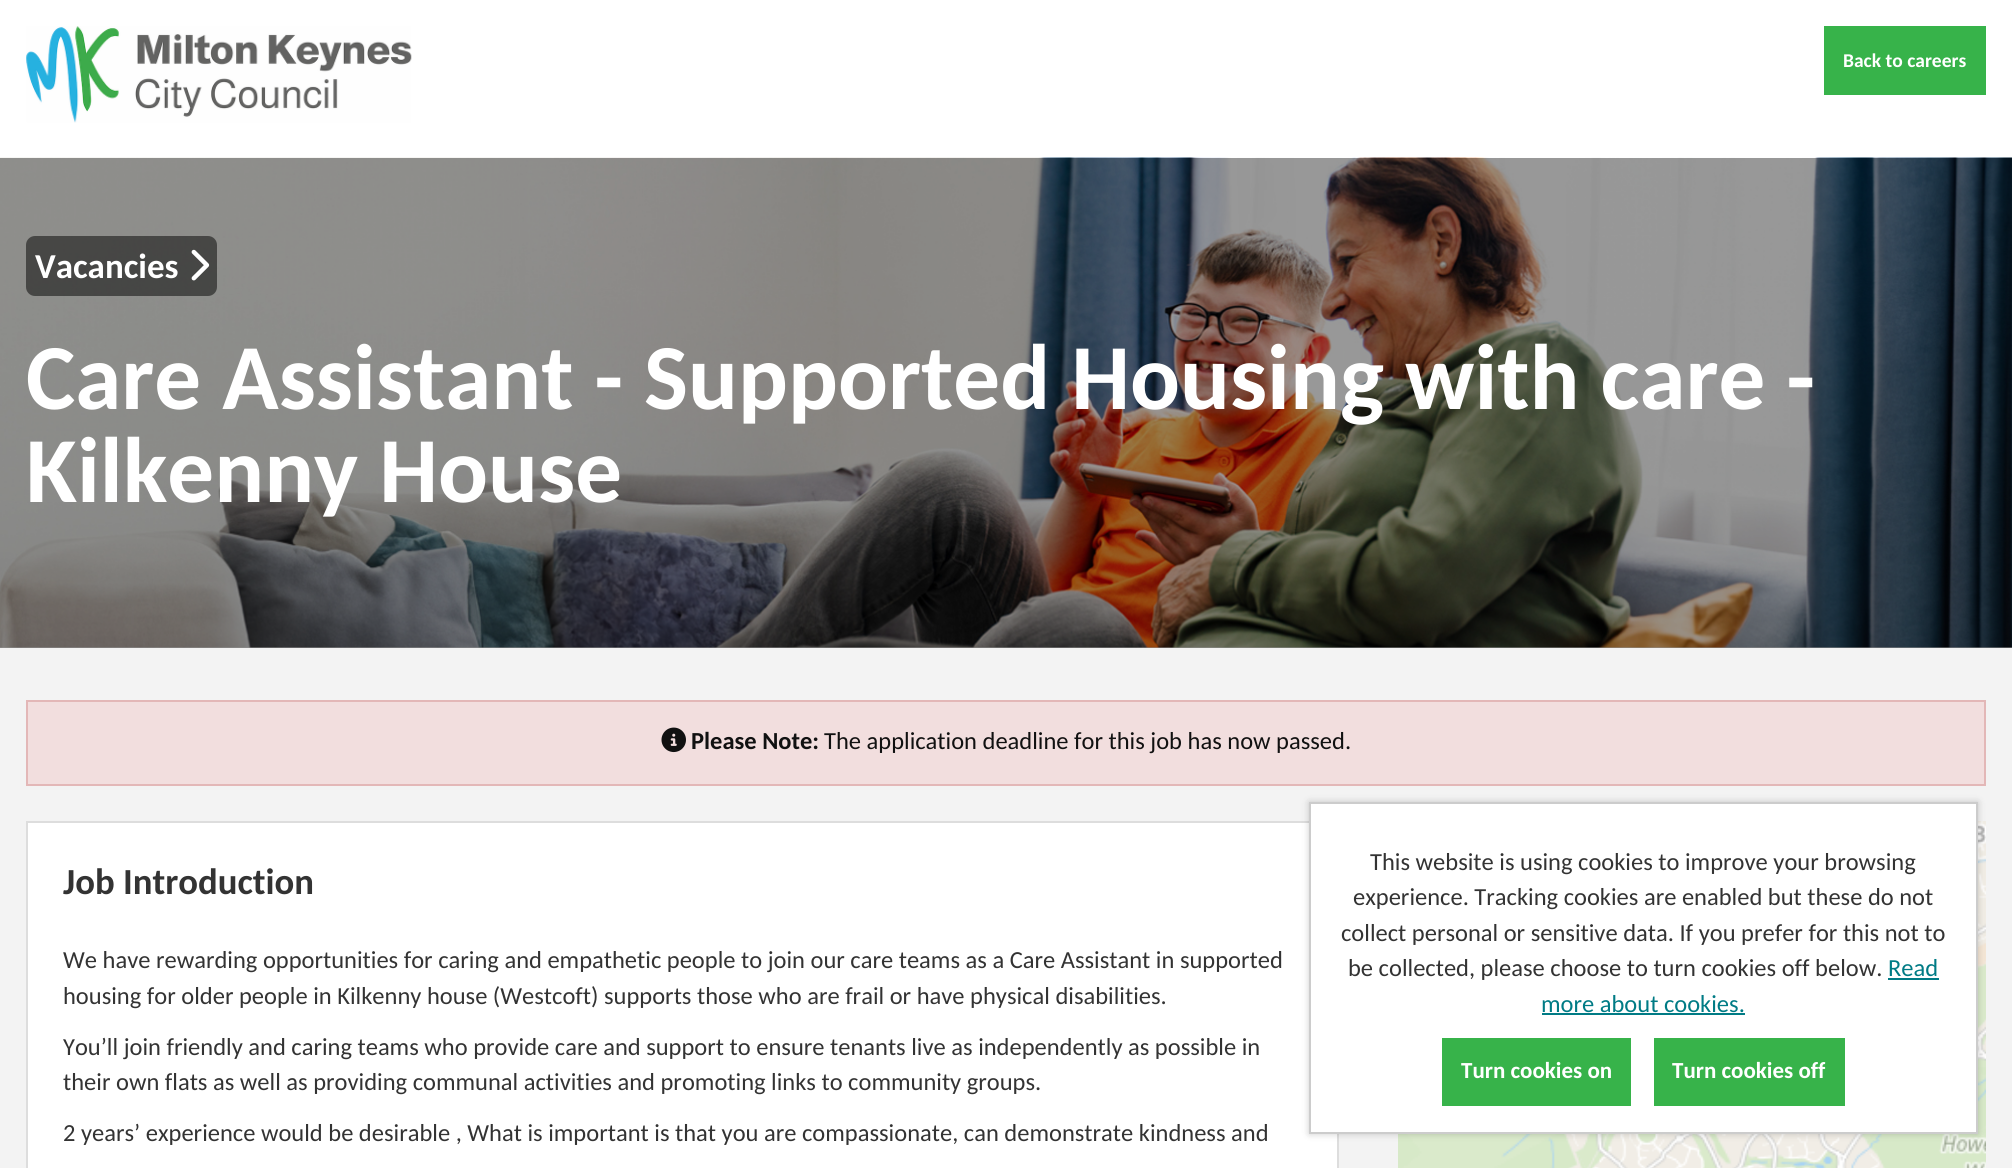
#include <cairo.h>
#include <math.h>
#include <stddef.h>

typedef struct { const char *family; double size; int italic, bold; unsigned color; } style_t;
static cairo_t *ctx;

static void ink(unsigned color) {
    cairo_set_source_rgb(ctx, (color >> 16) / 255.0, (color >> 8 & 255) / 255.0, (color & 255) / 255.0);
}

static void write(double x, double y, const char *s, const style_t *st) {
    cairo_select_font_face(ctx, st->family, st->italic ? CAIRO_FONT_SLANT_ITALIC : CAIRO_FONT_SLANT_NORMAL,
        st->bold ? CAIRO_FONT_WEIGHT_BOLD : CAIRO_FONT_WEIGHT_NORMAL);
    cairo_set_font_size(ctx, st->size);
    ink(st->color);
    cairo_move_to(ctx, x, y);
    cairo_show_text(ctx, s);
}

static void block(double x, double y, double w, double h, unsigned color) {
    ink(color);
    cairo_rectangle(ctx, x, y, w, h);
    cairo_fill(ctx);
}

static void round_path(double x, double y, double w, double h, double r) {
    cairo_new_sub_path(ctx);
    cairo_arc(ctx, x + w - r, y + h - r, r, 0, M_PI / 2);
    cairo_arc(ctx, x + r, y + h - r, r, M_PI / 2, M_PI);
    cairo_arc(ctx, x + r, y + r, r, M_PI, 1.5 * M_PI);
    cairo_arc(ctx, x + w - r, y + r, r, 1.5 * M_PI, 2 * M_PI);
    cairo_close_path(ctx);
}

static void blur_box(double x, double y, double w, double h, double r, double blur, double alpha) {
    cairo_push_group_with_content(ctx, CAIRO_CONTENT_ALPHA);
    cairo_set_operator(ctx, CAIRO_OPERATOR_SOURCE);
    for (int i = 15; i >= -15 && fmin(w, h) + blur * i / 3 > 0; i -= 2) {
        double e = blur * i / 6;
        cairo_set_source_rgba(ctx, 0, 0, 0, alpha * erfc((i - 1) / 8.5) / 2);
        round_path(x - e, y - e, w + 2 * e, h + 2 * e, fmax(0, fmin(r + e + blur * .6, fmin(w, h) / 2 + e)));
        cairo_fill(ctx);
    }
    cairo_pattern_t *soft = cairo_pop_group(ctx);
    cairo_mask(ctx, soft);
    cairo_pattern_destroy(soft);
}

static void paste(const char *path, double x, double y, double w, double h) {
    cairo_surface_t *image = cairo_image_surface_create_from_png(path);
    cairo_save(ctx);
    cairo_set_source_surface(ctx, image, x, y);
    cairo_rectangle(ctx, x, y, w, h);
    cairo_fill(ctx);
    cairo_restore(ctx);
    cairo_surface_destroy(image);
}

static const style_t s1 = {"Carlito", 19.5, 0, 1, 0xffffff};
static const style_t s2 = {"Carlito", 35, 0, 1, 0xffffff};
static const style_t s3 = {"Carlito", 93.1, 0, 1, 0xffffff};
static const style_t s4 = {"Carlito", 24.5, 0, 1, 0x111111};
static const style_t s5 = {"Carlito", 24.5, 0, 0, 0x111111};
static const style_t s6 = {"Carlito", 36.75, 0, 1, 0x333333};
static const style_t s7 = {"Carlito", 24.5, 0, 0, 0x333333};
static const style_t s8 = {"Carlito", 24.5, 0, 0, 0x007b85};
static const style_t s9 = {"Carlito", 23, 0, 1, 0xffffff};

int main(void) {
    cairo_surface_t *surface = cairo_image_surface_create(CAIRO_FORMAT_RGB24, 2012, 1168);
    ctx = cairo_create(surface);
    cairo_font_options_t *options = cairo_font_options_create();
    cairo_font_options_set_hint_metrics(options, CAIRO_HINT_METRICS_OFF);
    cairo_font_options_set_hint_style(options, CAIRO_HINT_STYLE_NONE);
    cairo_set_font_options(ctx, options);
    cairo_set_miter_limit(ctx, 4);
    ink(0xf3f3f3);
    cairo_paint(ctx);
    block(0, 0, 2012, 158, 0xffffff);
    paste("pic1.png", 26, 26, 386, 97);
    block(1824, 26, 162, 69, 0x37b34a);
    write(1843, 67, "Back to careers", &s1);
    block(0, 647, 2012, 1, 0x929292);
    paste("pic2.png", 0, 157, 2012, 491);
    cairo_set_source_rgba(ctx, 0, 0, 0, 0.5);
    round_path(26, 236, 191, 60, 9);
    cairo_fill(ctx);
    write(35, 278, "Vacancies", &s2);
    paste("pic3.png", 191, 249, 19, 32);
    write(26, 409, "Care Assistant - Supported Housing with care -", &s3);
    write(26, 502, "Kilkenny House", &s3);
    ink(0xf2dede);
    cairo_rectangle(ctx, 27, 701, 1958, 84);
    cairo_fill_preserve(ctx);
    ink(0xe3b7b7);
    cairo_stroke(ctx);
    paste("pic4.png", 661, 727, 25, 26);
    write(691, 749, "Please Note:", &s4);
    write(824, 749, "The application deadline for this job has now passed.", &s5);
    ink(0xffffff);
    cairo_rectangle(ctx, 27, 822, 1311, 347);
    cairo_fill_preserve(ctx);
    ink(0xdddddd);
    cairo_stroke(ctx);
    write(63, 894, "Job Introduction", &s6);
    write(63, 968, "We have rewarding opportunities for caring and empathetic people to join our care teams as a Care Assistant in supported", &s7);
    write(63, 1004, "housing for older people in Kilkenny house (Westcoft) supports those who are frail or have physical disabilities.", &s7);
    write(63, 1055, "You’ll join friendly and caring teams who provide care and support to ensure tenants live as independently as possible in", &s7);
    write(63, 1090, "their own flats as well as providing communal activities and promoting links to community groups.", &s7);
    write(63, 1141, "2 years’ experience would be desirable , What is important is that you are compassionate, can demonstrate kindness and", &s7);
    paste("pic5.png", 1398, 1134, 88, 34);
    paste("pic6.png", 1486, 1134, 448, 34);
    paste("pic7.png", 1934, 821, 52, 347);
    ink(0x000000);
    blur_box(1309, 802, 669, 332, 0, 3.5, 0.2);
    ink(0xffffff);
    cairo_rectangle(ctx, 1310, 803, 667, 330);
    cairo_fill_preserve(ctx);
    ink(0xcccccc);
    cairo_stroke(ctx);
    write(1370, 870, "This website is using cookies to improve your browsing", &s7);
    write(1353, 905, "experience. Tracking cookies are enabled but these do not", &s7);
    write(1341, 941, "collect personal or sensitive data. If you prefer for this not to", &s7);
    write(1348, 976, "be collected, please choose to turn cookies off below.", &s7);
    write(1888, 976, "Read", &s8);
    block(1888, 978, 51, 2, 0x007b85);
    write(1541, 1012, "more about cookies.", &s8);
    block(1542, 1013, 203, 2, 0x007b85);
    block(1442, 1038, 189, 68, 0x37b34a);
    write(1461, 1078, "Turn cookies on", &s9);
    block(1654, 1038, 191, 68, 0x37b34a);
    write(1672, 1078, "Turn cookies off", &s9);
    cairo_surface_write_to_png(surface, "screenshot.png");
    cairo_font_options_destroy(options);
    cairo_destroy(ctx);
    cairo_surface_destroy(surface);
    return 0;
}
